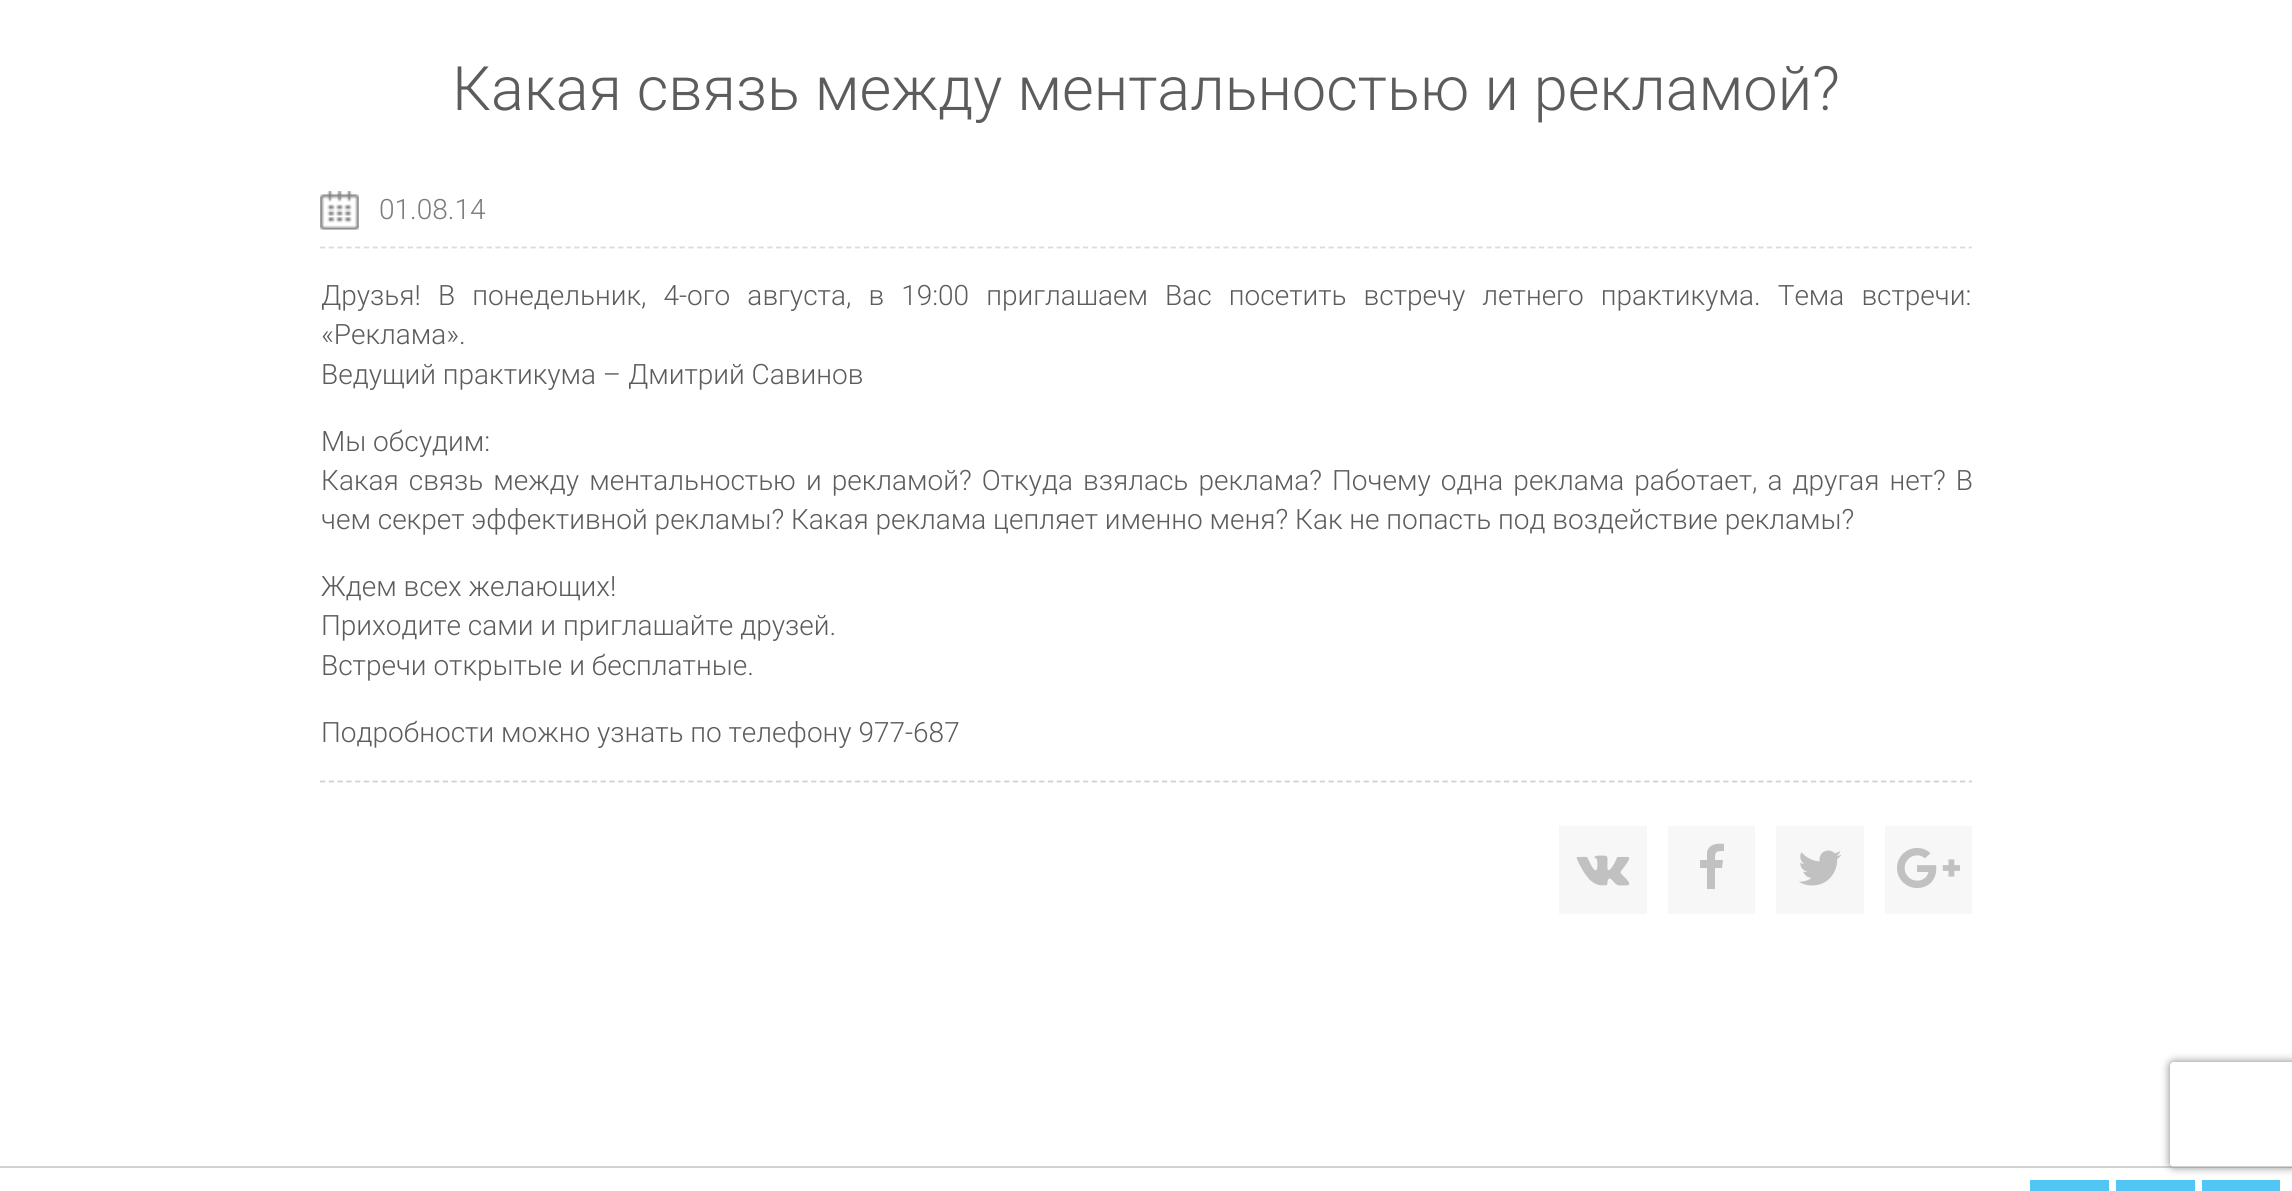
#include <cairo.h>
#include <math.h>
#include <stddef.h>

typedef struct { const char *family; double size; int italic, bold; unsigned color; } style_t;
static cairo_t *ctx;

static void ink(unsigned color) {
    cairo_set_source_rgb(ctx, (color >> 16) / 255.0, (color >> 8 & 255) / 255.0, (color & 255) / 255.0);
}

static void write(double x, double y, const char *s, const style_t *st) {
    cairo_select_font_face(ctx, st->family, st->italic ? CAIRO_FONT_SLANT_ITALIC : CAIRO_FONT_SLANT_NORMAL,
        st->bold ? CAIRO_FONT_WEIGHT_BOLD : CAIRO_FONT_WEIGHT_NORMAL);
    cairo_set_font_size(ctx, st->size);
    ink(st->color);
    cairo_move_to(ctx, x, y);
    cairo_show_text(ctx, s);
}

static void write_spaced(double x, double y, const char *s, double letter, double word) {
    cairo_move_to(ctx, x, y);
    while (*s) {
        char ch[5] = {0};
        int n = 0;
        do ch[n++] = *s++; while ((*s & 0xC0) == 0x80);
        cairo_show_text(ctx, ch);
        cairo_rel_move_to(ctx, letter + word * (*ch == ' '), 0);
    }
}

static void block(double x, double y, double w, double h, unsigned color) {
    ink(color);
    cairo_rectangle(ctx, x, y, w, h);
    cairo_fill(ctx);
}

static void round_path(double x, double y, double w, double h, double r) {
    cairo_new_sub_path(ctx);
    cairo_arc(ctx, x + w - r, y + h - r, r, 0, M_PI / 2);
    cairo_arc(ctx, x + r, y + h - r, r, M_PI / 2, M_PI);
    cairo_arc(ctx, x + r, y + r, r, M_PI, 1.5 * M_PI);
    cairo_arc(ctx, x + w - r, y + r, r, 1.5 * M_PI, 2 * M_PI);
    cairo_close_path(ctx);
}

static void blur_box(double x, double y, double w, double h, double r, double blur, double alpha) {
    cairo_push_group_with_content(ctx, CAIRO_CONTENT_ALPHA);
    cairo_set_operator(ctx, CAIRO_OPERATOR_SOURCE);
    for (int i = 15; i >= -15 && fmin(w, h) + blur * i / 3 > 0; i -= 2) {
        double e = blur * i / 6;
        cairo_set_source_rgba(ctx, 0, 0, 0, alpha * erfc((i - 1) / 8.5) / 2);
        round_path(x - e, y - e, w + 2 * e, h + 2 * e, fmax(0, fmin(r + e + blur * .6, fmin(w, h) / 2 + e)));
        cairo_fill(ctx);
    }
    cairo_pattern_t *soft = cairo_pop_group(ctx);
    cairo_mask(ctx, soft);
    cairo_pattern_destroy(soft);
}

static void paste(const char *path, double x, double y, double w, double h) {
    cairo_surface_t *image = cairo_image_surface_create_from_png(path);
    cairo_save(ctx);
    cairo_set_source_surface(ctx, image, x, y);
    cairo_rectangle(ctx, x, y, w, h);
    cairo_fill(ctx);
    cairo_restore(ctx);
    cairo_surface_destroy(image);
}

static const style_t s1 = {"Roboto Light", 61.25, 0, 0, 0x5c5c5c};
static const style_t s2 = {"Roboto Light", 28, 0, 0, 0x7b7b7b};
static const style_t s3 = {"Roboto Light", 28, 0, 0, 0x5c5c5c};

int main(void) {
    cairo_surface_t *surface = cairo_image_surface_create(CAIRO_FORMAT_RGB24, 2292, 1191);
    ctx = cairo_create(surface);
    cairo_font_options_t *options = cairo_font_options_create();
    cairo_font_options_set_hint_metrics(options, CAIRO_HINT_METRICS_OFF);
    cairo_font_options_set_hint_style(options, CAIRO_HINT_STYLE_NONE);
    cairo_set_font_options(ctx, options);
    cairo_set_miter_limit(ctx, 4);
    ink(0xffffff);
    cairo_paint(ctx);
    write(452, 110, "Какая связь между ментальностью и рекламой?", &s1);
    cairo_new_path(ctx);
    cairo_move_to(ctx, 320, 247.5);
    cairo_line_to(ctx, 1972, 247.5);
    ink(0xdbdbdb);
    cairo_set_line_width(ctx, 1.8);
    cairo_set_dash(ctx, (double[]){5.25, 3.52}, 2, 0);
    cairo_stroke(ctx);
    paste("pic1.png", 320, 191, 39, 39);
    write(379, 219, "01.08.14", &s2);
    ink(0x5c5c5c);
    write_spaced(321, 305, "Друзья! В понедельник, 4-ого августа, в 19:00 приглашаем Вас посетить встречу летнего практикума. Тема встречи:", 0, 10.25);
    write(321, 344, "«Реклама».", &s3);
    write(321, 384, "Ведущий практикума – Дмитрий Савинов", &s3);
    write(321, 451, "Мы обсудим:", &s3);
    write_spaced(321, 490, "Какая связь между ментальностью и рекламой? Откуда взялась реклама? Почему одна реклама работает, а другая нет? В", 0, 3.25);
    write(321, 529, "чем секрет эффективной рекламы? Какая реклама цепляет именно меня? Как не попасть под воздействие рекламы?", &s3);
    write(321, 596, "Ждем всех желающих!", &s3);
    write(321, 635, "Приходите сами и приглашайте друзей.", &s3);
    write(321, 675, "Встречи открытые и бесплатные.", &s3);
    write(321, 742, "Подробности можно узнать по телефону 977-687", &s3);
    cairo_new_path(ctx);
    cairo_move_to(ctx, 320, 781.5);
    cairo_line_to(ctx, 1972, 781.5);
    ink(0xd2d2d2);
    cairo_stroke(ctx);
    block(1559, 826, 88, 88, 0xf7f7f7);
    paste("pic2.png", 1576, 855, 54, 31);
    block(1668, 826, 87, 88, 0xf7f7f7);
    ink(0xc1c1c1);
    cairo_new_path(ctx);
    cairo_move_to(ctx, 1724, 844);
    cairo_curve_to(ctx, 1717, 843, 1709, 844, 1707, 852);
    cairo_line_to(ctx, 1707, 860);
    cairo_line_to(ctx, 1700, 860);
    cairo_line_to(ctx, 1700, 868);
    cairo_line_to(ctx, 1707, 868);
    cairo_line_to(ctx, 1707, 889);
    cairo_line_to(ctx, 1715, 889);
    cairo_line_to(ctx, 1715, 868);
    cairo_line_to(ctx, 1722, 868);
    cairo_line_to(ctx, 1723, 860);
    cairo_line_to(ctx, 1715, 860);
    cairo_curve_to(ctx, 1715, 852, 1715, 851, 1724, 851);
    cairo_close_path(ctx);
    cairo_fill(ctx);
    block(1776, 826, 88, 88, 0xf7f7f7);
    paste("pic3.png", 1798, 850, 44, 36);
    block(1885, 826, 87, 88, 0xf7f7f7);
    paste("pic4.png", 1897, 848, 63, 40);
    block(0, 1166, 2292, 2, 0xd1d1d1);
    block(2116, 1180, 79, 11, 0x51c5f3);
    block(2202, 1180, 78, 11, 0x51c5f3);
    cairo_save(ctx);
    cairo_set_fill_rule(ctx, CAIRO_FILL_RULE_EVEN_ODD);
    cairo_new_path(ctx);
    cairo_move_to(ctx, 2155, 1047);
    cairo_line_to(ctx, 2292, 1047);
    cairo_line_to(ctx, 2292, 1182);
    cairo_line_to(ctx, 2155, 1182);
    cairo_close_path(ctx);
    cairo_move_to(ctx, 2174, 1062);
    cairo_line_to(ctx, 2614, 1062);
    cairo_curve_to(ctx, 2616, 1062, 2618, 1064, 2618, 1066);
    cairo_line_to(ctx, 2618, 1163);
    cairo_curve_to(ctx, 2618, 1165, 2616, 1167, 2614, 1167);
    cairo_line_to(ctx, 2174, 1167);
    cairo_curve_to(ctx, 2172, 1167, 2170, 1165, 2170, 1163);
    cairo_line_to(ctx, 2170, 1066);
    cairo_curve_to(ctx, 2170, 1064, 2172, 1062, 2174, 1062);
    cairo_close_path(ctx);
    cairo_clip(ctx);
    ink(0x808080);
    blur_box(2170, 1062, 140, 105, 4, 4.5, 1);
    cairo_restore(ctx);
    block(2030, 1180, 79, 11, 0x51c5f3);
    cairo_surface_write_to_png(surface, "screenshot.png");
    cairo_font_options_destroy(options);
    cairo_destroy(ctx);
    cairo_surface_destroy(surface);
    return 0;
}
